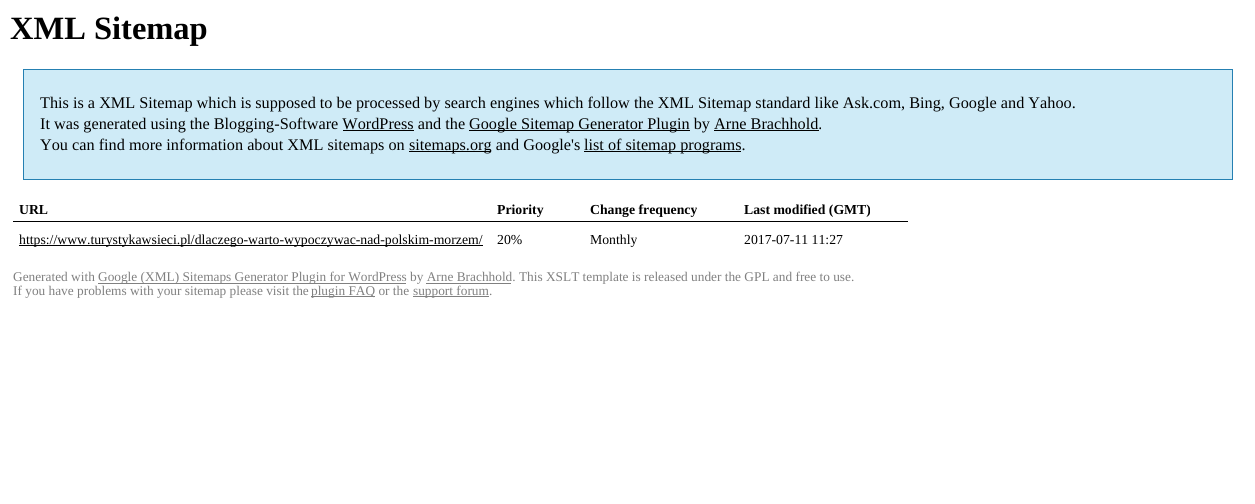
#include <cairo.h>
#include <math.h>
#include <stddef.h>

typedef struct { const char *family; double size; int italic, bold; unsigned color; } style_t;
static cairo_t *ctx;

static void ink(unsigned color) {
    cairo_set_source_rgb(ctx, (color >> 16) / 255.0, (color >> 8 & 255) / 255.0, (color & 255) / 255.0);
}

static void write(double x, double y, const char *s, const style_t *st) {
    cairo_select_font_face(ctx, st->family, st->italic ? CAIRO_FONT_SLANT_ITALIC : CAIRO_FONT_SLANT_NORMAL,
        st->bold ? CAIRO_FONT_WEIGHT_BOLD : CAIRO_FONT_WEIGHT_NORMAL);
    cairo_set_font_size(ctx, st->size);
    ink(st->color);
    cairo_move_to(ctx, x, y);
    cairo_show_text(ctx, s);
}

static void block(double x, double y, double w, double h, unsigned color) {
    ink(color);
    cairo_rectangle(ctx, x, y, w, h);
    cairo_fill(ctx);
}

static const style_t s1 = {"Liberation Serif", 32.5, 0, 1, 0x000000};
static const style_t s2 = {"Liberation Serif", 16.25, 0, 0, 0x000000};
static const style_t s3 = {"Liberation Serif", 13.75, 0, 1, 0x000000};
static const style_t s4 = {"Liberation Serif", 13.75, 0, 0, 0x000000};
static const style_t s5 = {"Liberation Serif", 13.33, 0, 0, 0x808080};

int main(void) {
    cairo_surface_t *surface = cairo_image_surface_create(CAIRO_FORMAT_RGB24, 1255, 504);
    ctx = cairo_create(surface);
    cairo_font_options_t *options = cairo_font_options_create();
    cairo_font_options_set_hint_metrics(options, CAIRO_HINT_METRICS_OFF);
    cairo_font_options_set_hint_style(options, CAIRO_HINT_STYLE_NONE);
    cairo_set_font_options(ctx, options);
    cairo_set_miter_limit(ctx, 4);
    ink(0xffffff);
    cairo_paint(ctx);
    write(10, 39, "XML Sitemap", &s1);
    ink(0xcfebf7);
    cairo_rectangle(ctx, 23.5, 69.5, 1209, 110);
    cairo_fill_preserve(ctx);
    ink(0x2580b2);
    cairo_set_line_width(ctx, 1);
    cairo_stroke(ctx);
    write(40, 108, "This is a XML Sitemap which is supposed to be processed by search engines which follow the XML Sitemap standard like Ask.com, Bing, Google and Yahoo.", &s2);
    write(40, 129, "It was generated using the Blogging-Software WordPress and the", &s2);
    block(469, 130, 221, 1, 0x000000);
    write(469, 129, "Google Sitemap Generator Plugin by Arne Brachhold.", &s2);
    block(343, 130, 71, 1, 0x000000);
    block(714, 130, 105, 1, 0x000000);
    write(40, 150, "You can find more information about XML sitemaps on", &s2);
    block(409, 151, 82, 1, 0x000000);
    write(409, 150, "sitemaps.org and Google's", &s2);
    block(584, 151, 157, 1, 0x000000);
    write(584, 150, "list of sitemap programs.", &s2);
    block(13, 221, 895, 1, 0x000000);
    write(19, 214, "URL", &s3);
    write(497, 214, "Priority", &s3);
    write(590, 214, "Change frequency", &s3);
    write(744, 214, "Last modified (GMT)", &s3);
    block(19, 245, 464, 1, 0x000000);
    write(19, 244, "https://www.turystykawsieci.pl/dlaczego-warto-wypoczywac-nad-polskim-morzem/", &s4);
    write(497, 244, "20%", &s4);
    write(590, 244, "Monthly", &s4);
    write(744, 244, "2017-07-11 11:27", &s4);
    write(13, 281, "Generated with", &s5);
    block(98, 283, 308, 1, 0x808080);
    write(98, 281, "Google (XML) Sitemaps Generator Plugin for WordPress by Arne Brachhold. This XSLT template is released under the GPL and free to use.", &s5);
    block(426, 283, 85, 1, 0x808080);
    write(13, 295, "If you have problems with your sitemap please visit the", &s5);
    block(311, 296, 64, 1, 0x808080);
    write(311, 295, "plugin FAQ or the", &s5);
    block(413, 296, 76, 1, 0x808080);
    write(413, 295, "support forum.", &s5);
    cairo_surface_write_to_png(surface, "screenshot.png");
    cairo_font_options_destroy(options);
    cairo_destroy(ctx);
    cairo_surface_destroy(surface);
    return 0;
}
